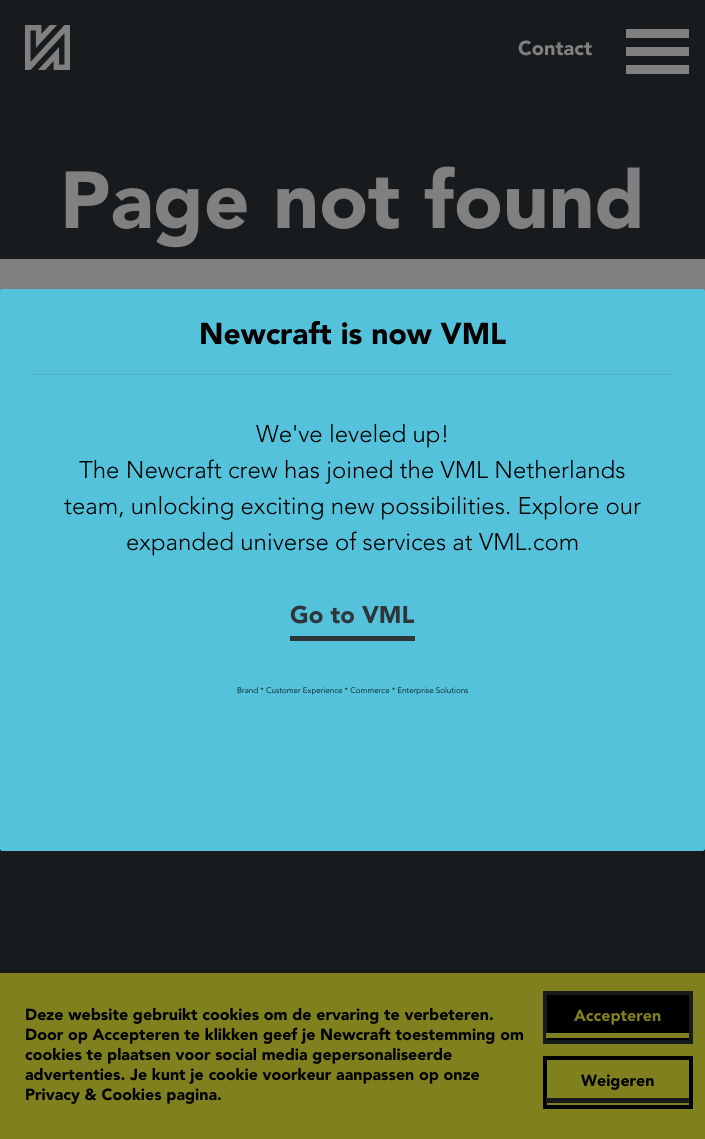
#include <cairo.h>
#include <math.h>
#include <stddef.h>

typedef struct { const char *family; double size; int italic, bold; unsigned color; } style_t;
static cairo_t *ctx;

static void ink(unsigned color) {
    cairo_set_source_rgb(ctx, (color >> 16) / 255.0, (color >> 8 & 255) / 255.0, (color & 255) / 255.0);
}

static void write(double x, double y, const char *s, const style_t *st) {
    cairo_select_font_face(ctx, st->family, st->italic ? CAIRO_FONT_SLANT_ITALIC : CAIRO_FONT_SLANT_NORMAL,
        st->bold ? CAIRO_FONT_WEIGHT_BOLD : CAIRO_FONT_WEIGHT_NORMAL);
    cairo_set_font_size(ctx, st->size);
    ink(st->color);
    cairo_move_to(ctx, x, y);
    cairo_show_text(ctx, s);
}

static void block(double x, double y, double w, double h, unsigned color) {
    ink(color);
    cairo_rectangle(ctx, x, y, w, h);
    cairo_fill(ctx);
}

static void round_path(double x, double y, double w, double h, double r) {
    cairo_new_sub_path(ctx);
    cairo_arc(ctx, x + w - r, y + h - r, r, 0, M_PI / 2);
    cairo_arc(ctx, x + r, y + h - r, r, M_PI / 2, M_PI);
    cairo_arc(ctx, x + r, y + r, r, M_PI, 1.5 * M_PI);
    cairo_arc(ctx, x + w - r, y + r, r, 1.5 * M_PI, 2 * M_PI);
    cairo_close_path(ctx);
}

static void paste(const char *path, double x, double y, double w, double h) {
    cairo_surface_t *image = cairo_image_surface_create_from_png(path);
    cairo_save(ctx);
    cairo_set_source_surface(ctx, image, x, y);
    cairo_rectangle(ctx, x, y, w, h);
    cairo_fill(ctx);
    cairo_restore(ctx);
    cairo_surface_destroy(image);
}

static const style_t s1 = {"Avenir Black", 20, 0, 0, 0x808080};
static const style_t s2 = {"Avenir Black", 80, 0, 0, 0x808080};
static const style_t s3 = {"Avenir Black", 30, 0, 0, 0x000000};
static const style_t s4 = {"Avenir Light", 24, 0, 0, 0x000000};
static const style_t s5 = {"Avenir Black", 24, 0, 0, 0x2e363a};
static const style_t s6 = {"Avenir Light", 8, 0, 0, 0x000000};
static const style_t s7 = {"Avenir Black", 16, 0, 0, 0x000000};
static const style_t s8 = {"Avenir Black", 16, 0, 0, 0x7f801e};

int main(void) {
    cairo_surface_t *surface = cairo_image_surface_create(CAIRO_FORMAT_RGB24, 705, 1139);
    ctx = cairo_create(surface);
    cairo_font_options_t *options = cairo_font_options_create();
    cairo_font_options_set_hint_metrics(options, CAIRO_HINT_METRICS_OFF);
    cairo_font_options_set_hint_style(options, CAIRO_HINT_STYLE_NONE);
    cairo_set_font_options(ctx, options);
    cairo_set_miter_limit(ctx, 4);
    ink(0x171b1d);
    cairo_paint(ctx);
    paste("pic1.png", 25, 25, 45, 45);
    write(518, 55, "Contact", &s1);
    cairo_new_path(ctx);
    cairo_move_to(ctx, 626, 29);
    cairo_line_to(ctx, 626, 38);
    cairo_line_to(ctx, 689, 38);
    cairo_line_to(ctx, 689, 29);
    cairo_close_path(ctx);
    cairo_move_to(ctx, 626, 47);
    cairo_line_to(ctx, 626, 56);
    cairo_line_to(ctx, 689, 56);
    cairo_line_to(ctx, 689, 47);
    cairo_close_path(ctx);
    cairo_move_to(ctx, 626, 65);
    cairo_line_to(ctx, 626, 74);
    cairo_line_to(ctx, 689, 74);
    cairo_line_to(ctx, 689, 65);
    cairo_close_path(ctx);
    cairo_fill(ctx);
    write(60, 228, "Page not found", &s2);
    block(0, 259, 705, 33, 0x808080);
    ink(0x55c2db);
    round_path(0, 289, 705, 562, 2.5);
    cairo_fill(ctx);
    write(199, 344, "Newcraft is now VML", &s3);
    block(31, 374, 643, 1, 0x4dafc5);
    write(256, 442, "We've leveled up!", &s4);
    write(79, 478, "The Newcraft crew has joined the VML Netherlands", &s4);
    write(64, 514, "team, unlocking exciting new possibilities. Explore our", &s4);
    write(126, 550, "expanded universe of services at VML.com", &s4);
    write(290, 623, "Go to VML", &s5);
    block(290, 636, 125, 5, 0x2e363a);
    write(237, 693, "Brand * Customer Experience * Commerce * Enterprise Solutions", &s6);
    block(0, 973, 705, 166, 0x80801e);
    write(25, 1020, "Deze website gebruikt cookies om de ervaring te verbeteren.", &s7);
    write(25, 1040, "Door op Accepteren te klikken geef je Newcraft toestemming om", &s7);
    write(25, 1060, "cookies te plaatsen voor social media gepersonaliseerde", &s7);
    write(25, 1080, "advertenties. Je kunt je cookie voorkeur aanpassen op onze", &s7);
    write(25, 1100, "Privacy & Cookies pagina", &s7);
    write(217, 1100, ".", &s7);
    cairo_rectangle(ctx, 545, 993, 146, 49);
    cairo_fill_preserve(ctx);
    ink(0x171b1d);
    cairo_set_line_width(ctx, 4);
    cairo_stroke(ctx);
    write(574, 1021, "Accepteren", &s8);
    block(546, 1033, 143, 5, 0x7f801e);
    cairo_rectangle(ctx, 545, 1058, 146, 49);
    ink(0x000000);
    cairo_stroke(ctx);
    write(581, 1086, "Weigeren", &s7);
    block(546, 1098, 143, 5, 0x171b1d);
    cairo_surface_write_to_png(surface, "screenshot.png");
    cairo_font_options_destroy(options);
    cairo_destroy(ctx);
    cairo_surface_destroy(surface);
    return 0;
}
